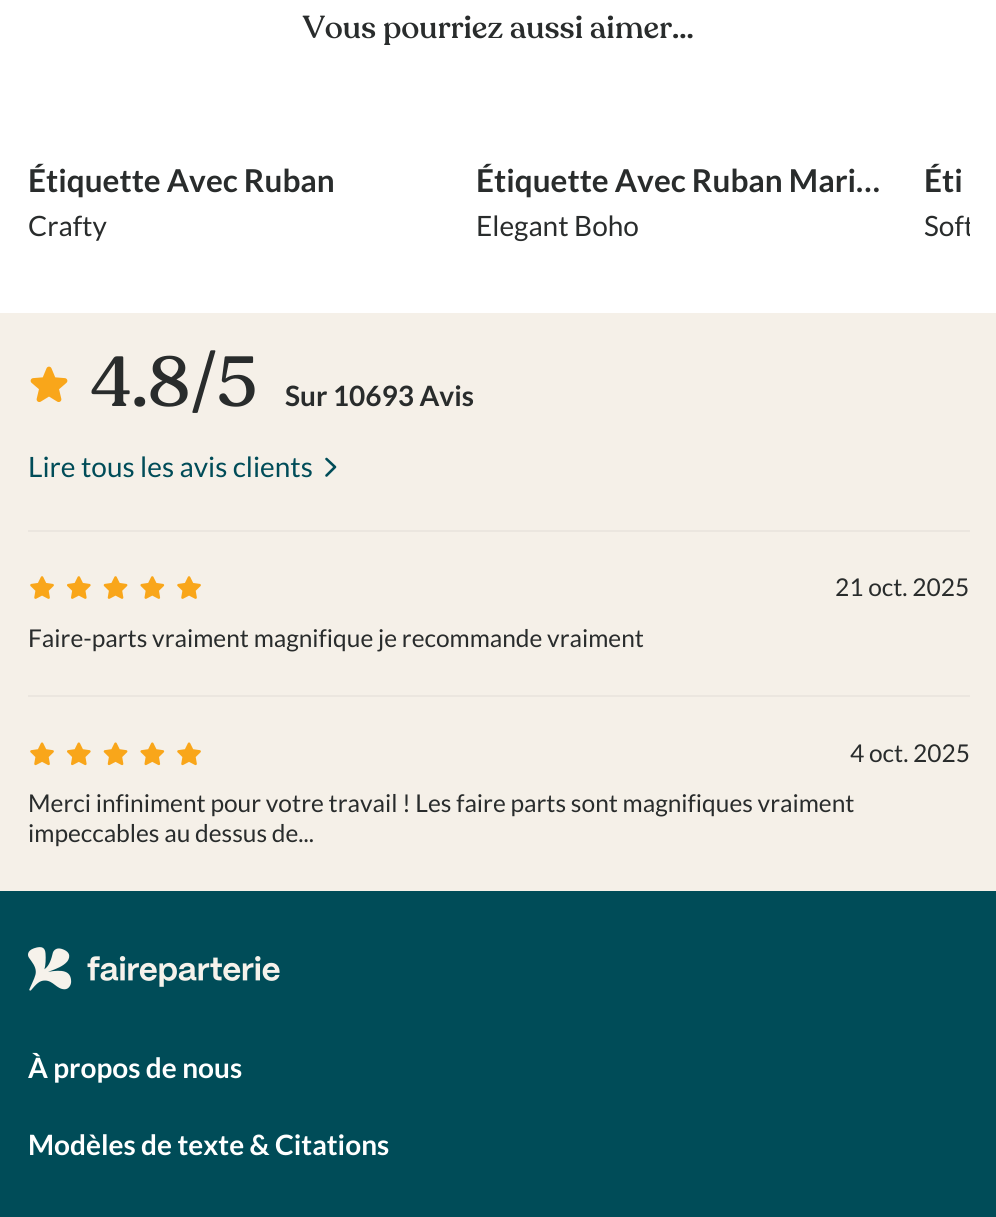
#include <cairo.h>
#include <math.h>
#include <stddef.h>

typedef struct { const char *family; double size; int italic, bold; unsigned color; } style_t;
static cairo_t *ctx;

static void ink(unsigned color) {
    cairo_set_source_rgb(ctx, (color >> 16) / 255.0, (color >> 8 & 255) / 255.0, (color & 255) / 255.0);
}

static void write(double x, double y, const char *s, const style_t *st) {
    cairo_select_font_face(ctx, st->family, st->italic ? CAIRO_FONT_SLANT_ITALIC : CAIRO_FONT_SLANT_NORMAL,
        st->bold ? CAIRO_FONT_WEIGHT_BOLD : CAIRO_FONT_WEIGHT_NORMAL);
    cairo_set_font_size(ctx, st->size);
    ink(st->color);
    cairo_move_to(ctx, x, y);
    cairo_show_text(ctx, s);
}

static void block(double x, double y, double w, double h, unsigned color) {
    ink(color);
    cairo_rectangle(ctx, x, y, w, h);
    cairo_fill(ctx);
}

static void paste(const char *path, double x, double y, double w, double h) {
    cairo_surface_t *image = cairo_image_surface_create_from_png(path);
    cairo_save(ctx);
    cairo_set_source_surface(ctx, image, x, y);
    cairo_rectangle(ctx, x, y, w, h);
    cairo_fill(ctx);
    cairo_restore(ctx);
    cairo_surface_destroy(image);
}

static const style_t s1 = {"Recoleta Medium", 31.5, 0, 0, 0x292c2c};
static const style_t s2 = {"Lato", 31.5, 0, 1, 0x292c2c};
static const style_t s3 = {"Lato", 28, 0, 0, 0x292c2c};
static const style_t s4 = {"Recoleta Medium", 70, 0, 0, 0x292c2c};
static const style_t s5 = {"Lato", 28, 0, 1, 0x292c2c};
static const style_t s6 = {"Lato", 28, 0, 0, 0x004c58};
static const style_t s7 = {"Lato", 24.5, 0, 0, 0x292c2c};
static const style_t s8 = {"Lato", 28, 0, 1, 0xffffff};

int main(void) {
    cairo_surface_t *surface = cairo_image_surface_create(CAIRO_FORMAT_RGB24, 996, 1217);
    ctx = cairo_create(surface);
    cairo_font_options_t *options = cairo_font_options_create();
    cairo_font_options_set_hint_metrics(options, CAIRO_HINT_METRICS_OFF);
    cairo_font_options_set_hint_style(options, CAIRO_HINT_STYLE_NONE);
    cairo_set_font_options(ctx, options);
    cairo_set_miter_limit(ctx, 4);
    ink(0xffffff);
    cairo_paint(ctx);
    write(303, 38, "Vous pourriez aussi aimer...", &s1);
    write(28, 192, "Étiquette Avec Ruban", &s2);
    write(28, 236, "Crafty", &s3);
    write(476, 192, "Étiquette Avec Ruban Mari…", &s2);
    write(476, 236, "Elegant Boho", &s3);
    write(924, 192, "Éti", &s2);
    cairo_save(ctx);
    cairo_rectangle(ctx, 924, 205, 46, 42);
    cairo_clip(ctx);
    write(924, 236, "Soft", &s3);
    cairo_restore(ctx);
    block(0, 313, 996, 578, 0xf5f0e8);
    paste("pic1.png", 30, 366, 38, 36);
    write(91, 406, "4.8/5", &s4);
    write(285, 406, "Sur 10693 Avis", &s5);
    write(28, 477, "Lire tous les avis clients", &s6);
    cairo_new_path(ctx);
    cairo_move_to(ctx, 326.5, 459);
    cairo_line_to(ctx, 335, 467);
    cairo_line_to(ctx, 326.5, 475.5);
    cairo_set_line_width(ctx, 2.6);
    cairo_set_line_cap(ctx, CAIRO_LINE_CAP_ROUND);
    cairo_set_line_join(ctx, CAIRO_LINE_JOIN_ROUND);
    cairo_stroke(ctx);
    block(28, 530, 942, 2, 0xebe6df);
    paste("pic2.png", 30, 576, 24, 23);
    paste("pic3.png", 67, 576, 24, 23);
    paste("pic4.png", 103, 576, 25, 23);
    paste("pic5.png", 140, 576, 25, 23);
    paste("pic2.png", 177, 576, 24, 23);
    write(835, 596, "21 oct. 2025", &s7);
    write(28, 647, "Faire-parts vraiment magnifique je recommande vraiment", &s7);
    block(28, 695, 942, 2, 0xebe6df);
    paste("pic6.png", 30, 742, 24, 24);
    paste("pic7.png", 67, 742, 24, 24);
    paste("pic8.png", 103, 742, 25, 24);
    paste("pic9.png", 140, 742, 25, 24);
    paste("pic6.png", 177, 742, 24, 24);
    write(850, 762, "4 oct. 2025", &s7);
    write(28, 812, "Merci infiniment pour votre travail ! Les faire parts sont magnifiques vraiment", &s7);
    write(28, 842, "impeccables au dessus de...", &s7);
    block(0, 891, 996, 326, 0x004c58);
    paste("pic10.png", 28, 947, 252, 44);
    write(28, 1078, "À propos de nous", &s8);
    write(28, 1155, "Modèles de texte & Citations", &s8);
    cairo_surface_write_to_png(surface, "screenshot.png");
    cairo_font_options_destroy(options);
    cairo_destroy(ctx);
    cairo_surface_destroy(surface);
    return 0;
}
